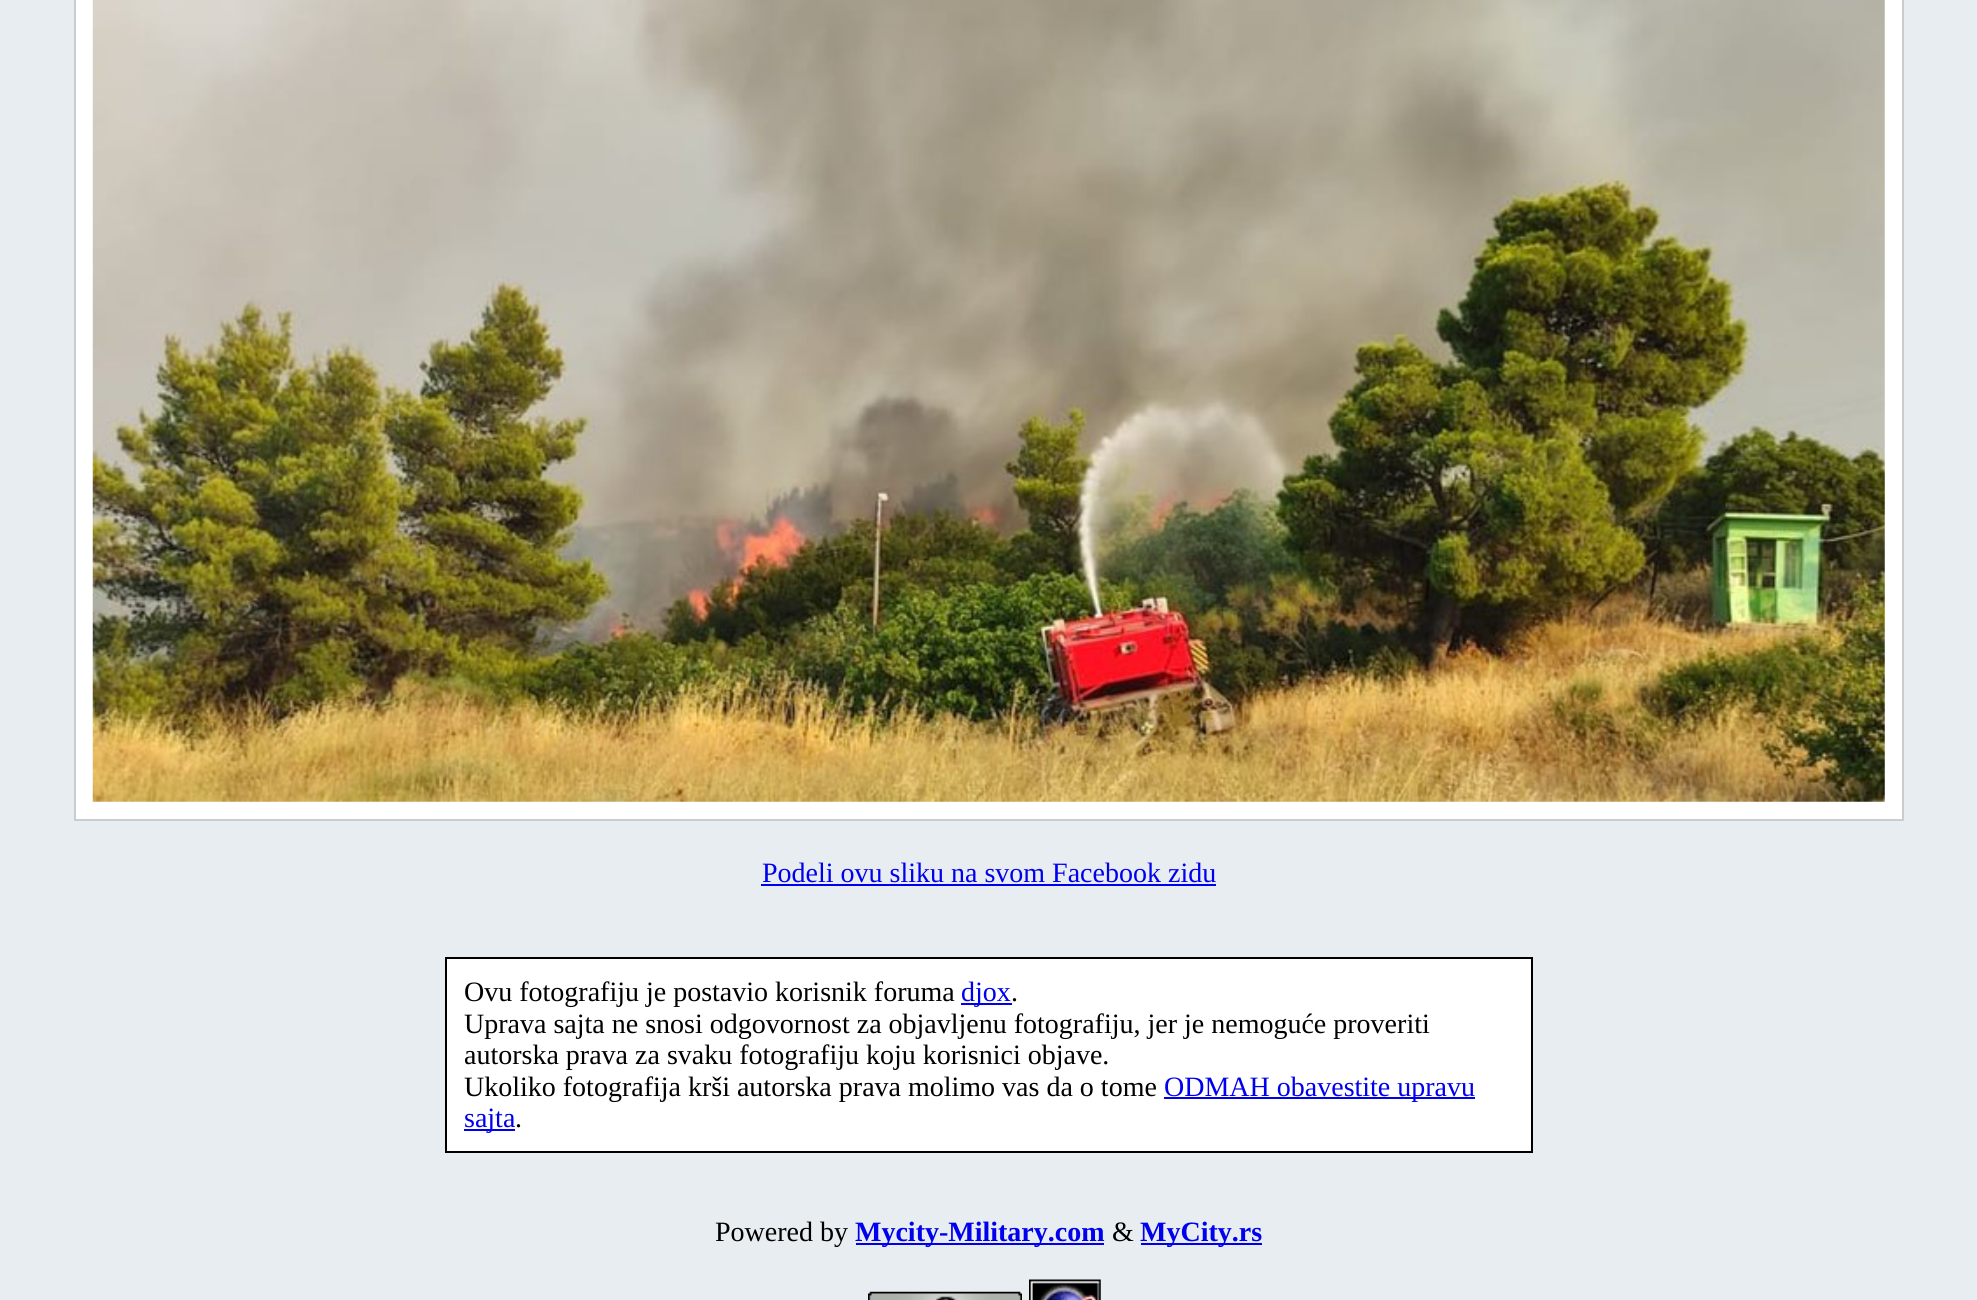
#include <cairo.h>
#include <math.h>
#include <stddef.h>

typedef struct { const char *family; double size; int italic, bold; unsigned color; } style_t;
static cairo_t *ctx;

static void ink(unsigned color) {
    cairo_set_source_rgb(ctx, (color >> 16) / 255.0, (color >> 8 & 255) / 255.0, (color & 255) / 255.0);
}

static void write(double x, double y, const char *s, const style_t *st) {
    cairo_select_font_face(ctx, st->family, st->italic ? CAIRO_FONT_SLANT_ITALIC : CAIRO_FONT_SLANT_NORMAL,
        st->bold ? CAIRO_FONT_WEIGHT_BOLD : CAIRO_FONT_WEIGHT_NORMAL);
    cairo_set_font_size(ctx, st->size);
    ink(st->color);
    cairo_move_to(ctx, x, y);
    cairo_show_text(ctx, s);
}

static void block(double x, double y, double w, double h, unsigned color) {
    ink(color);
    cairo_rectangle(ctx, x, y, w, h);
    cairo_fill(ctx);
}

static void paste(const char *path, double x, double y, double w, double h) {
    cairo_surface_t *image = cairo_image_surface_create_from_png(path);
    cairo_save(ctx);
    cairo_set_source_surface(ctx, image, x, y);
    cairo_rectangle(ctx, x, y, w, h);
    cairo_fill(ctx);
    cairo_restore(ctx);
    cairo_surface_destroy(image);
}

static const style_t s1 = {"Liberation Serif", 28, 0, 0, 0x0000ee};
static const style_t s2 = {"Liberation Serif", 28, 0, 0, 0x000000};
static const style_t s3 = {"Liberation Serif", 28, 0, 1, 0x0000ee};

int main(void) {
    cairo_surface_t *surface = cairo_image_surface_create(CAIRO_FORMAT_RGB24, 1977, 1300);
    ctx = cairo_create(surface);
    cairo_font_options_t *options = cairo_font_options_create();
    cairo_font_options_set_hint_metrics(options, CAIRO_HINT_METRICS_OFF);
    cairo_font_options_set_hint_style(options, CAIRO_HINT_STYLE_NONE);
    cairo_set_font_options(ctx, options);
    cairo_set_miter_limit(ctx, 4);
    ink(0xe8edf1);
    cairo_paint(ctx);
    ink(0xffffff);
    cairo_rectangle(ctx, 75, -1, 1828, 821);
    cairo_fill_preserve(ctx);
    ink(0xcccccc);
    cairo_stroke(ctx);
    paste("pic1.png", 92, 0, 1793, 802);
    write(762, 882, "Podeli ovu sliku na svom Facebook zidu", &s1);
    block(761, 884, 455, 2, 0x0000ee);
    ink(0xffffff);
    cairo_rectangle(ctx, 446, 958, 1086, 194);
    cairo_fill_preserve(ctx);
    ink(0x000000);
    cairo_stroke(ctx);
    write(464, 1001, "Ovu fotografiju je postavio korisnik foruma", &s2);
    block(961, 1003, 51, 2, 0x0000ee);
    write(961, 1001, "djox", &s1);
    write(1011, 1001, ".", &s2);
    write(464, 1033, "Uprava sajta ne snosi odgovornost za objavljenu fotografiju, jer je nemoguće proveriti", &s2);
    write(464, 1064, "autorska prava za svaku fotografiju koju korisnici objave.", &s2);
    write(464, 1096, "Ukoliko fotografija krši autorska prava molimo vas da o tome", &s2);
    block(1164, 1097, 311, 2, 0x0000ee);
    write(1164, 1096, "ODMAH obavestite upravu", &s1);
    block(464, 1129, 51, 2, 0x0000ee);
    write(464, 1127, "sajta", &s1);
    write(515, 1127, ".", &s2);
    write(715, 1241, "Powered by", &s2);
    block(856, 1243, 248, 2, 0x0000ee);
    write(855, 1241, "Mycity-Military.com", &s3);
    write(1112, 1241, "&", &s2);
    block(1141, 1243, 121, 2, 0x0000ee);
    write(1140, 1241, "MyCity.rs", &s3);
    paste("pic2.png", 868, 1291, 154, 9);
    paste("pic3.png", 1029, 1279, 72, 21);
    cairo_surface_write_to_png(surface, "screenshot.png");
    cairo_font_options_destroy(options);
    cairo_destroy(ctx);
    cairo_surface_destroy(surface);
    return 0;
}
